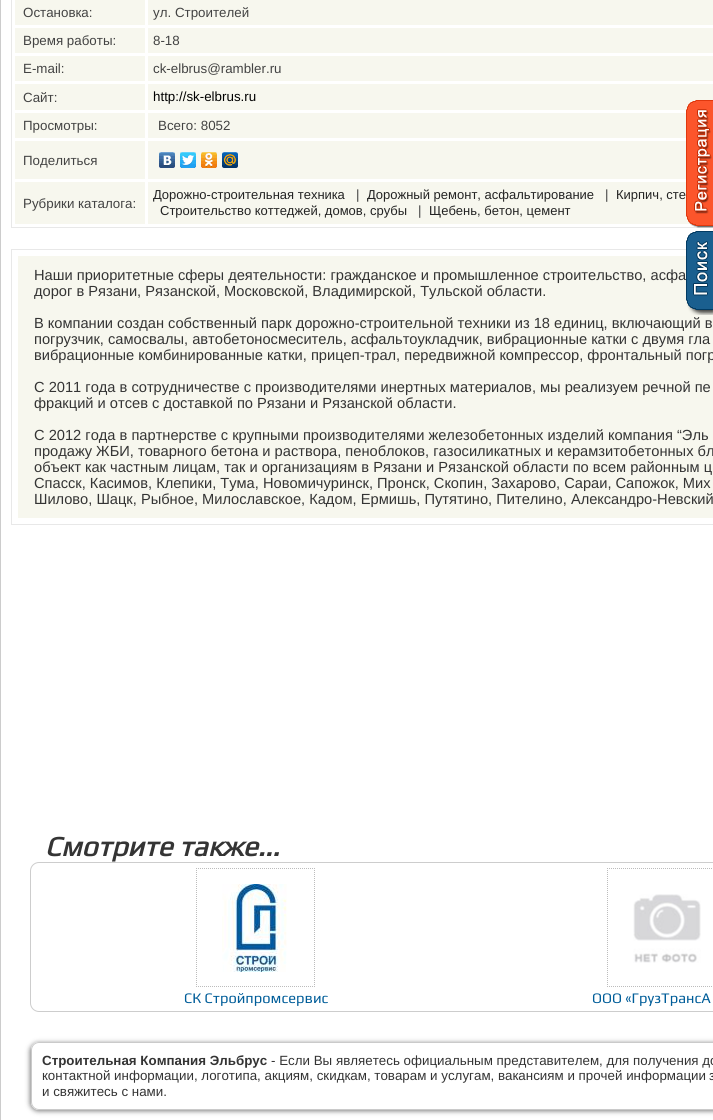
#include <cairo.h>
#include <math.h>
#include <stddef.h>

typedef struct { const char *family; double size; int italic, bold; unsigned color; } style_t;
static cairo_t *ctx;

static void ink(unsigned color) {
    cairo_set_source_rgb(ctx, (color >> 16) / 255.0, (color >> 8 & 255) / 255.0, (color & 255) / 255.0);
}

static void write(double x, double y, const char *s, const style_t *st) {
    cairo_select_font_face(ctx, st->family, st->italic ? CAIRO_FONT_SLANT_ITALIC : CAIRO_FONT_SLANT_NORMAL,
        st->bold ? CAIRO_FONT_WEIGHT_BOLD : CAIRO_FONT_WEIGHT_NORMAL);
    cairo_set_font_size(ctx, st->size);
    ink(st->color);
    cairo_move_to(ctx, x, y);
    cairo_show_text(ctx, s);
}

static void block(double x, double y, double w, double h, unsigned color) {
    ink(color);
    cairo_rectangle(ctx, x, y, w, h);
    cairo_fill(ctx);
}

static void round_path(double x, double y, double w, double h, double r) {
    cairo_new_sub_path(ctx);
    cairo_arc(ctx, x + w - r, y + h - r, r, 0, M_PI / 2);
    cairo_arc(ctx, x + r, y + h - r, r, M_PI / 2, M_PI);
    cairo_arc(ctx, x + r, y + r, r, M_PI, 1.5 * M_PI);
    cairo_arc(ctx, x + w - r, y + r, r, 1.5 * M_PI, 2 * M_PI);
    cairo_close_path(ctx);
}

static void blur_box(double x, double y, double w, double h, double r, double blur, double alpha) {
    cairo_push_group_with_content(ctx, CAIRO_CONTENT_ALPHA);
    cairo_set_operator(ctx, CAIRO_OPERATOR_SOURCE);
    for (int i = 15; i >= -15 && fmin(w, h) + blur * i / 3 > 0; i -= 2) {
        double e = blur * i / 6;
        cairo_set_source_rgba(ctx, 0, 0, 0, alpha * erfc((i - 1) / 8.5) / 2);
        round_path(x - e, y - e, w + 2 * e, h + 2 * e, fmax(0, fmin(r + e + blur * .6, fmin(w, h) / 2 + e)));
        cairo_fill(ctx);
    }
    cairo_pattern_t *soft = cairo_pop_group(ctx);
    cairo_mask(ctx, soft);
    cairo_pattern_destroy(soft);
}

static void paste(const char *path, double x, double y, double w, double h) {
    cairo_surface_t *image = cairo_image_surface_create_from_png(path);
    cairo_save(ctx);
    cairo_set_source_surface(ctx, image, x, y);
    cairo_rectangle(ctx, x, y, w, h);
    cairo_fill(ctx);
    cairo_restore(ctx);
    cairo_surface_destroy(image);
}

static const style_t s1 = {"Liberation Sans", 13.35, 0, 0, 0x434343};
static const style_t s2 = {"Liberation Sans", 13.35, 0, 0, 0x000000};
static const style_t s3 = {"Liberation Sans", 13, 0, 0, 0x232323};
static const style_t s4 = {"Liberation Sans", 14.65, 0, 0, 0x343434};
static const style_t s5 = {"Play", 28, 1, 1, 0x343434};
static const style_t s6 = {"Play", 14.65, 0, 0, 0x005d99};
static const style_t s7 = {"Liberation Sans", 13.35, 0, 1, 0x343434};
static const style_t s8 = {"Liberation Sans", 13.35, 0, 0, 0x343434};

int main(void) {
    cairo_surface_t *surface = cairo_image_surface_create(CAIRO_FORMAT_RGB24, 713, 1120);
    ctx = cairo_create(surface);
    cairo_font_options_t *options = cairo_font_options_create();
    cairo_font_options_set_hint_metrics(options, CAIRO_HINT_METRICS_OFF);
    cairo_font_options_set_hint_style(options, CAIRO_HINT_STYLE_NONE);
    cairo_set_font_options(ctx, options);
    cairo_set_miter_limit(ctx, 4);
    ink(0xffffff);
    cairo_paint(ctx);
    cairo_rectangle(ctx, 0.5, -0.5, 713, 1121);
    ink(0xcccccc);
    cairo_set_line_width(ctx, 1);
    cairo_stroke(ctx);
    cairo_rectangle(ctx, 11.5, -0.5, 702, 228);
    ink(0xe8e8e8);
    cairo_stroke(ctx);
    block(15, 0, 130, 25, 0xf7f7ee);
    write(23, 17, "Остановка:", &s1);
    block(148, 0, 565, 25, 0xf7f7ee);
    write(153, 17, "ул. Строителей", &s1);
    block(15, 28, 130, 25, 0xf7f7ee);
    write(23, 45, "Время работы:", &s1);
    block(148, 28, 565, 25, 0xf7f7ee);
    write(153, 45, "8-18", &s1);
    block(15, 56, 130, 25, 0xf7f7ee);
    write(23, 73, "E-mail:", &s1);
    block(148, 56, 565, 25, 0xf7f7ee);
    write(153, 73, "ck-elbrus@rambler.ru", &s1);
    block(15, 84, 130, 26, 0xf7f7ee);
    write(23, 102, "Сайт:", &s1);
    block(148, 84, 565, 26, 0xf7f7ee);
    write(153, 101, "http://sk-elbrus.ru", &s2);
    block(15, 113, 130, 25, 0xf7f7ee);
    write(23, 130, "Просмотры:", &s1);
    block(148, 113, 538, 25, 0xf7f7ee);
    write(158, 130, "Всего: 8052", &s1);
    block(15, 141, 130, 38, 0xf7f7ee);
    write(23, 165, "Поделиться", &s1);
    block(148, 141, 538, 38, 0xf7f7ee);
    paste("pic1.png", 159, 152, 16, 16);
    paste("pic2.png", 180, 152, 16, 16);
    paste("pic3.png", 201, 152, 16, 16);
    paste("pic4.png", 222, 152, 16, 16);
    block(15, 182, 130, 42, 0xf7f7ee);
    write(23, 208, "Рубрики каталога:", &s1);
    block(148, 182, 543, 42, 0xf7f7ee);
    write(153, 199, "Дорожно-строительная техника", &s3);
    write(356, 199, "|", &s1);
    write(367, 199, "Дорожный ремонт, асфальтирование", &s3);
    write(605, 199, "|", &s1);
    write(616, 199, "Кирпич, сте", &s3);
    write(160, 215, "Строительство коттеджей, домов, срубы", &s3);
    write(418, 215, "|", &s1);
    write(429, 215, "Щебень, бетон, цемент", &s3);
    cairo_rectangle(ctx, 11.5, 249.5, 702, 275);
    ink(0xe8e8e8);
    cairo_stroke(ctx);
    block(18, 256, 695, 262, 0xf7f7ee);
    write(34, 280, "Наши приоритетные сферы деятельности: гражданское и промышленное строительство, асфа", &s4);
    write(34, 296, "дорог в Рязани, Рязанской, Московской, Владимирской, Тульской области.", &s4);
    write(34, 328, "В компании создан собственный парк дорожно-строительной техники из 18 единиц, включающий в", &s4);
    write(34, 344, "погрузчик, самосвалы, автобетоносмеситель, асфальтоукладчик, вибрационные катки с двумя гла", &s4);
    write(34, 360, "вибрационные комбинированные катки, прицеп-трал, передвижной компрессор, фронтальный погр", &s4);
    write(34, 392, "С 2011 года в сотрудничестве с производителями инертных материалов, мы реализуем речной пе", &s4);
    write(34, 408, "фракций и отсев с доставкой по Рязани и Рязанской области.", &s4);
    write(34, 440, "С 2012 года в партнерстве с крупными производителями железобетонных изделий компания “Эль", &s4);
    write(34, 456, "продажу ЖБИ, товарного бетона и раствора, пеноблоков, газосиликатных и керамзитобетонных бл", &s4);
    write(34, 472, "объект как частным лицам, так и организациям в Рязани и Рязанской области по всем районным ц", &s4);
    write(34, 488, "Спасск, Касимов, Клепики, Тума, Новомичуринск, Пронск, Скопин, Захарово, Сараи, Сапожок, Мих", &s4);
    write(34, 504, "Шилово, Шацк, Рыбное, Милославское, Кадом, Ермишь, Путятино, Пителино, Александро-Невский", &s4);
    write(45, 856, "Смотрите также...", &s5);
    round_path(30.5, 862.5, 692, 149, 8.5);
    ink(0xcdcdcd);
    cairo_stroke(ctx);
    paste("pic5.png", 222, 884, 65, 88);
    cairo_new_path(ctx);
    cairo_move_to(ctx, 196, 868.5);
    cairo_line_to(ctx, 315, 868.5);
    ink(0xbcbcbc);
    cairo_set_dash(ctx, (double[]){1, 1}, 2, 0);
    cairo_stroke(ctx);
    cairo_new_path(ctx);
    cairo_move_to(ctx, 314.5, 868);
    cairo_line_to(ctx, 314.5, 987);
    cairo_stroke(ctx);
    cairo_new_path(ctx);
    cairo_move_to(ctx, 196, 986.5);
    cairo_line_to(ctx, 315, 986.5);
    cairo_stroke(ctx);
    cairo_new_path(ctx);
    cairo_move_to(ctx, 196.5, 868);
    cairo_line_to(ctx, 196.5, 987);
    cairo_stroke(ctx);
    write(184, 1003, "СК Стройпромсервис", &s6);
    paste("pic6.png", 633, 894, 68, 69);
    cairo_new_path(ctx);
    cairo_move_to(ctx, 607, 868.5);
    cairo_line_to(ctx, 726, 868.5);
    ink(0xbcbcbc);
    cairo_stroke(ctx);
    cairo_new_path(ctx);
    cairo_move_to(ctx, 607, 986.5);
    cairo_line_to(ctx, 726, 986.5);
    cairo_stroke(ctx);
    cairo_new_path(ctx);
    cairo_move_to(ctx, 607.5, 868);
    cairo_line_to(ctx, 607.5, 987);
    cairo_stroke(ctx);
    write(592, 1003, "ООО «ГрузТрансА", &s6);
    cairo_save(ctx);
    cairo_set_fill_rule(ctx, CAIRO_FILL_RULE_EVEN_ODD);
    cairo_new_path(ctx);
    cairo_move_to(ctx, 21, 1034);
    cairo_line_to(ctx, 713, 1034);
    cairo_line_to(ctx, 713, 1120);
    cairo_line_to(ctx, 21, 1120);
    cairo_close_path(ctx);
    cairo_move_to(ctx, 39, 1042);
    cairo_line_to(ctx, 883, 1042);
    cairo_curve_to(ctx, 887.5, 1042, 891, 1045.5, 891, 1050);
    cairo_line_to(ctx, 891, 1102);
    cairo_curve_to(ctx, 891, 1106.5, 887.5, 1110, 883, 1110);
    cairo_line_to(ctx, 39, 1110);
    cairo_curve_to(ctx, 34.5, 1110, 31, 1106.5, 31, 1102);
    cairo_line_to(ctx, 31, 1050);
    cairo_curve_to(ctx, 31, 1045.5, 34.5, 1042, 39, 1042);
    cairo_close_path(ctx);
    cairo_clip(ctx);
    ink(0x5a5a5a);
    blur_box(30, 1043, 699, 68, 8, 2.5, 0.8);
    cairo_restore(ctx);
    round_path(31.5, 1042.5, 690, 67, 7.5);
    ink(0xcacaca);
    cairo_set_dash(ctx, NULL, 0, 0);
    cairo_stroke(ctx);
    write(42, 1065, "Строительная Компания Эльбрус", &s7);
    write(271, 1065, "- Если Вы являетесь официальным представителем, для получения до", &s8);
    write(42, 1080, "контактной информации, логотипа, акциям, скидкам, товарам и услугам, вакансиям и прочей информации", &s8);
    write(709, 1080, "з", &s3);
    write(42, 1096, "и свяжитесь с нами.", &s8);
    paste("pic7.png", 686, 100, 27, 128);
    paste("pic8.png", 686, 231, 27, 84);
    cairo_surface_write_to_png(surface, "screenshot.png");
    cairo_font_options_destroy(options);
    cairo_destroy(ctx);
    cairo_surface_destroy(surface);
    return 0;
}
